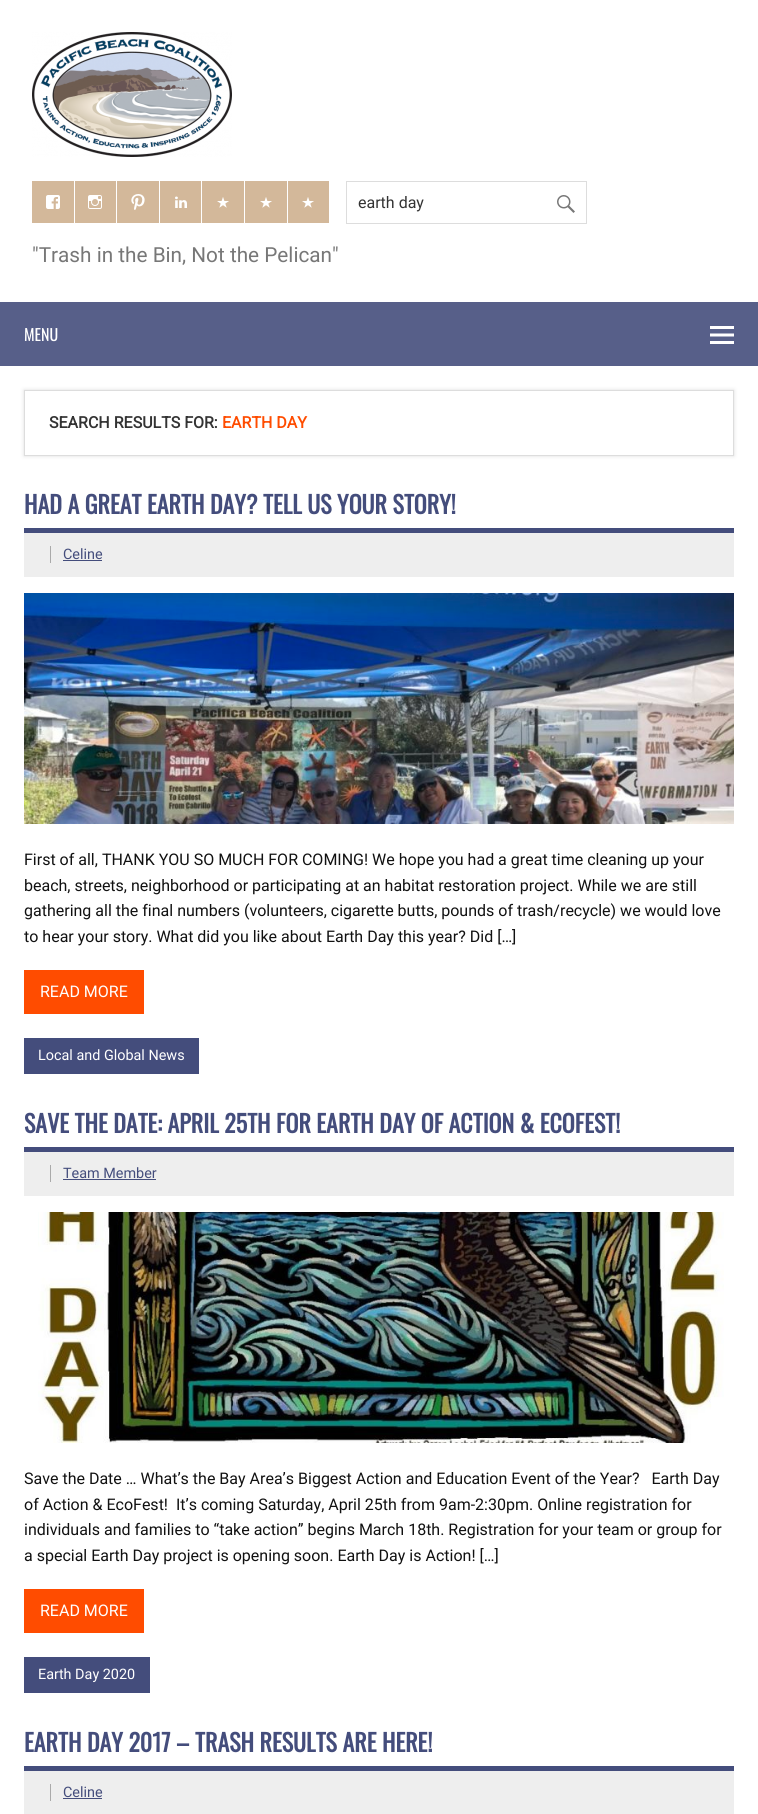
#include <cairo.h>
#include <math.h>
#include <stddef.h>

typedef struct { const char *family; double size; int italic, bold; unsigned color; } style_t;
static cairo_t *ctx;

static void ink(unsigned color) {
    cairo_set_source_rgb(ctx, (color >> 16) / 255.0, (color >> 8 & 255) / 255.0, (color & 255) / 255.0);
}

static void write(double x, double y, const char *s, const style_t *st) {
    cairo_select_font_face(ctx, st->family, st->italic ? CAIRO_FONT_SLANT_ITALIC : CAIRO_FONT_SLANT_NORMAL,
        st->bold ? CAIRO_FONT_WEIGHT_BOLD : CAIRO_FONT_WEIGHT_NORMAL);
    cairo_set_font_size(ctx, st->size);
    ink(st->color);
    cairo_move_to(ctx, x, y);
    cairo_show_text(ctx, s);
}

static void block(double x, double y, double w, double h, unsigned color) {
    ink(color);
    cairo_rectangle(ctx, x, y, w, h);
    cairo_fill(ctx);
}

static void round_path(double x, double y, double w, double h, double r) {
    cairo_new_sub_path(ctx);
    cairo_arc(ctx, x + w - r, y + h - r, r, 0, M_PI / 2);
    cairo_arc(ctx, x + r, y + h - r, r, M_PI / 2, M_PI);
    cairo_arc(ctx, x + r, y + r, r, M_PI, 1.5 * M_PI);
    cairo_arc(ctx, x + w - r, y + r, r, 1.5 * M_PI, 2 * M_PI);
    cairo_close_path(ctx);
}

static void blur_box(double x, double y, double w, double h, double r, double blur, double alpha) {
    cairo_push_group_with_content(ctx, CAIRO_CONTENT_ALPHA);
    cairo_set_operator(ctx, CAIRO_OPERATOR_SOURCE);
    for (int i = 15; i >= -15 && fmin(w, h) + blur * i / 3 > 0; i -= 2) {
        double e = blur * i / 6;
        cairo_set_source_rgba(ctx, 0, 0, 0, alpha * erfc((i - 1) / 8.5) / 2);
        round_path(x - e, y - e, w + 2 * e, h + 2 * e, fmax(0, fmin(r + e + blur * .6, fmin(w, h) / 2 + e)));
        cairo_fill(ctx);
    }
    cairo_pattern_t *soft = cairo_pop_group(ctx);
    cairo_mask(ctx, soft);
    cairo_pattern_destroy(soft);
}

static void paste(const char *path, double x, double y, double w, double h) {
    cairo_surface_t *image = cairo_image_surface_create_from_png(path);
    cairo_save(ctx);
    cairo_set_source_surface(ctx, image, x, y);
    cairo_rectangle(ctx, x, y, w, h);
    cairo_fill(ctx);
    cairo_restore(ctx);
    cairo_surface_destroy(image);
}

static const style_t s1 = {"Roboto", 16, 0, 0, 0x333333};
static const style_t s2 = {"Roboto", 20.75, 0, 0, 0x777777};
static const style_t s3 = {"Oswald", 16, 0, 0, 0xffffff};
static const style_t s4 = {"Roboto", 16, 0, 1, 0x333333};
static const style_t s5 = {"Roboto", 16, 0, 1, 0xff4c00};
static const style_t s6 = {"Oswald", 24, 0, 1, 0x444d7c};
static const style_t s7 = {"Roboto", 14.4, 0, 0, 0x444d7c};
static const style_t s8 = {"Roboto", 16, 0, 0, 0x111111};
static const style_t s9 = {"Roboto", 16, 0, 0, 0xffffff};
static const style_t s10 = {"Roboto", 14.4, 0, 0, 0xffffff};

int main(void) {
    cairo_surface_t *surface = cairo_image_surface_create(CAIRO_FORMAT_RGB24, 758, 1814);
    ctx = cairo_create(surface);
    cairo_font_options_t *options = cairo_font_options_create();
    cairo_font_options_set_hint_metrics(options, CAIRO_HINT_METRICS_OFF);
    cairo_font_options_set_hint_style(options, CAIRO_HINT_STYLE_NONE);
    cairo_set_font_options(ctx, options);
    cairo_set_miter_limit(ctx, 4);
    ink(0xffffff);
    cairo_paint(ctx);
    paste("pic1.png", 32, 32, 200, 125);
    block(32, 181, 42, 42, 0xd3b89a);
    paste("pic2.png", 46, 195, 14, 14);
    block(75, 181, 41, 42, 0xd3b89a);
    paste("pic3.png", 88, 195, 14, 14);
    block(117, 181, 42, 42, 0xd3b89a);
    paste("pic4.png", 131, 194, 14, 16);
    block(160, 181, 41, 42, 0xd3b89a);
    paste("pic5.png", 175, 196, 12, 12);
    block(202, 181, 42, 42, 0xd3b89a);
    paste("pic6.png", 217, 197, 12, 11);
    block(245, 181, 42, 42, 0xd3b89a);
    paste("pic6.png", 260, 197, 12, 11);
    block(288, 181, 41, 42, 0xd3b89a);
    paste("pic6.png", 302, 197, 12, 11);
    cairo_rectangle(ctx, 346.5, 181.5, 240, 42);
    ink(0xdddddd);
    cairo_set_line_width(ctx, 1);
    cairo_stroke(ctx);
    write(358, 208, "earth day", &s1);
    paste("pic7.png", 557, 195, 18, 18);
    write(32, 262, "\"Trash in the Bin, Not the Pelican\"", &s2);
    block(0, 302, 758, 64, 0x575f89);
    write(24, 341, "MENU", &s3);
    paste("pic8.png", 710, 326, 24, 18);
    cairo_save(ctx);
    cairo_set_fill_rule(ctx, CAIRO_FILL_RULE_EVEN_ODD);
    cairo_new_path(ctx);
    cairo_move_to(ctx, 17, 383);
    cairo_line_to(ctx, 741, 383);
    cairo_line_to(ctx, 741, 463);
    cairo_line_to(ctx, 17, 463);
    cairo_close_path(ctx);
    cairo_move_to(ctx, 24, 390);
    cairo_line_to(ctx, 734, 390);
    cairo_line_to(ctx, 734, 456);
    cairo_line_to(ctx, 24, 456);
    cairo_close_path(ctx);
    cairo_clip(ctx);
    ink(0xdddddd);
    blur_box(24, 390, 710, 66, 0, 2, 1);
    cairo_restore(ctx);
    cairo_rectangle(ctx, 24.5, 390.5, 709, 65);
    ink(0xdddddd);
    cairo_stroke(ctx);
    write(49, 428, "SEARCH RESULTS FOR:", &s4);
    write(222, 428, "EARTH DAY", &s5);
    block(24, 528, 710, 5, 0x444d7c);
    write(24, 514, "HAD A GREAT EARTH DAY? TELL US YOUR STORY!", &s6);
    block(24, 533, 710, 44, 0xeeeeee);
    write(63, 559, "Celine", &s7);
    block(50, 546, 1, 17, 0xaaaaaa);
    block(63, 560, 39, 1, 0x444d7c);
    paste("pic9.png", 24, 593, 710, 231);
    write(24, 865, "First of all, THANK YOU SO MUCH FOR COMING! We hope you had a great time cleaning up your", &s8);
    write(24, 891, "beach, streets, neighborhood or participating at an habitat restoration project. While we are still", &s8);
    write(24, 916, "gathering all the final numbers (volunteers, cigarette butts, pounds of trash/recycle) we would love", &s8);
    write(24, 942, "to hear your story. What did you like about Earth Day this year? Did […]", &s8);
    block(24, 970, 120, 44, 0xff4c00);
    write(40, 997, "READ MORE", &s9);
    block(24, 1038, 175, 36, 0x444d7c);
    write(38, 1060, "Local and Global News", &s10);
    block(24, 1147, 710, 5, 0x444d7c);
    write(24, 1133, "SAVE THE DATE: APRIL 25TH FOR EARTH DAY OF ACTION & ECOFEST!", &s6);
    block(24, 1152, 710, 44, 0xeeeeee);
    write(63, 1178, "Team Member", &s7);
    block(50, 1165, 1, 17, 0xaaaaaa);
    block(63, 1179, 93, 1, 0x444d7c);
    paste("pic10.png", 38, 1212, 686, 231);
    write(24, 1484, "Save the Date … What’s the Bay Area’s Biggest Action and Education Event of the Year?   Earth Day", &s8);
    write(24, 1510, "of Action & EcoFest!  It’s coming Saturday, April 25th from 9am-2:30pm. Online registration for", &s8);
    write(24, 1535, "individuals and families to “take action” begins March 18th. Registration for your team or group for", &s8);
    write(24, 1561, "a special Earth Day project is opening soon. Earth Day is Action! […]", &s8);
    block(24, 1589, 120, 44, 0xff4c00);
    write(40, 1616, "READ MORE", &s9);
    block(24, 1657, 126, 36, 0x444d7c);
    write(38, 1679, "Earth Day 2020", &s10);
    block(24, 1766, 710, 5, 0x444d7c);
    write(24, 1752, "EARTH DAY 2017 – TRASH RESULTS ARE HERE!", &s6);
    block(24, 1771, 710, 43, 0xeeeeee);
    write(63, 1797, "Celine", &s7);
    block(50, 1784, 1, 17, 0xaaaaaa);
    block(63, 1798, 39, 1, 0x444d7c);
    cairo_surface_write_to_png(surface, "screenshot.png");
    cairo_font_options_destroy(options);
    cairo_destroy(ctx);
    cairo_surface_destroy(surface);
    return 0;
}
